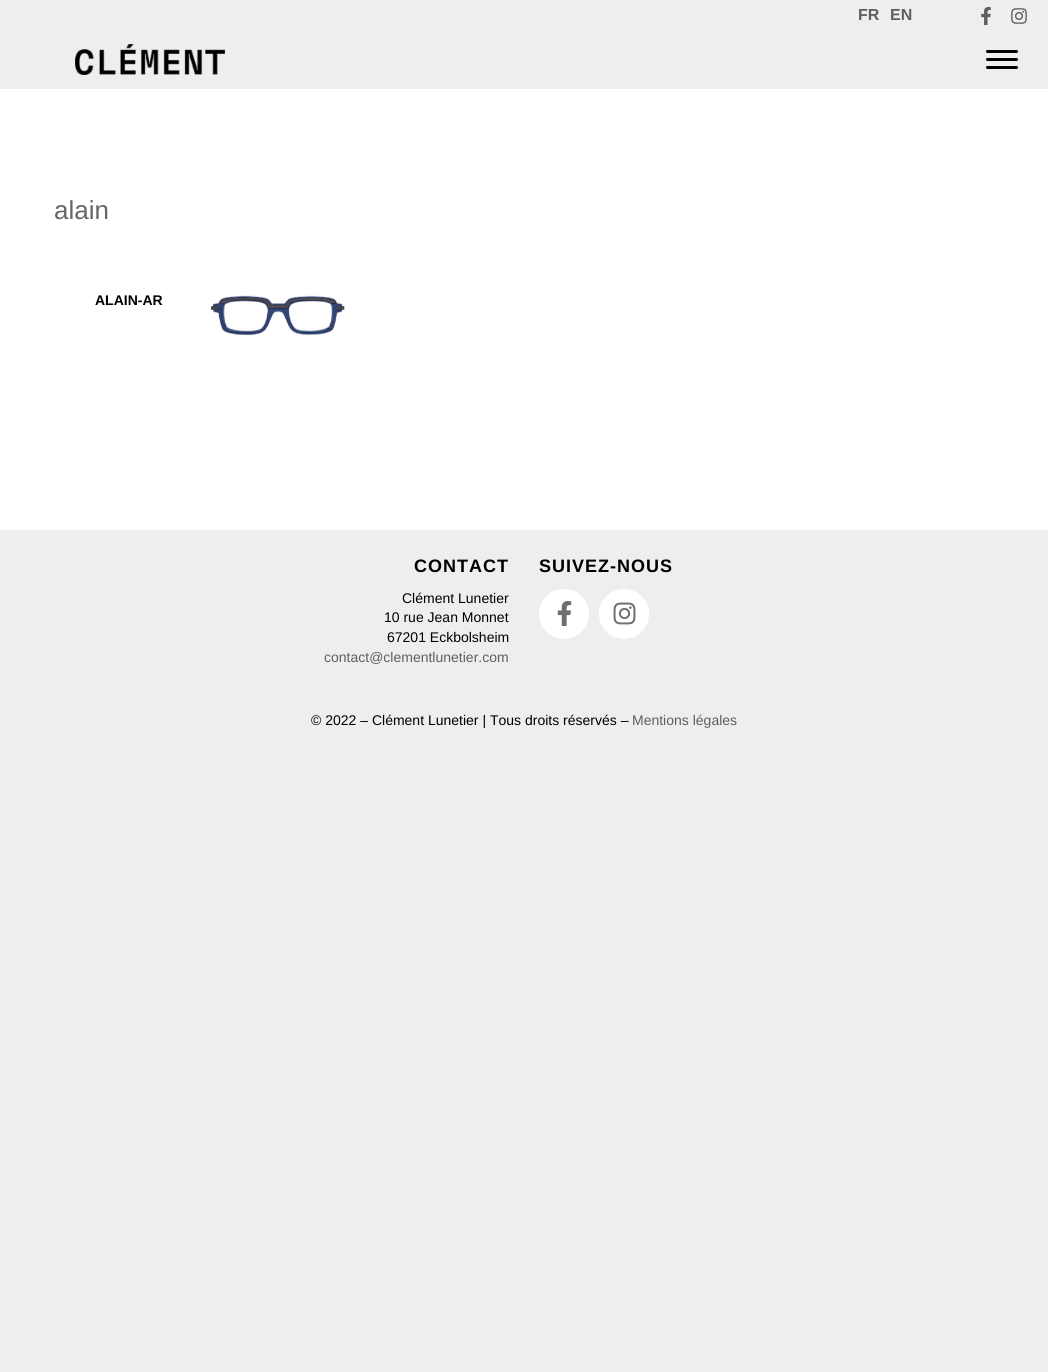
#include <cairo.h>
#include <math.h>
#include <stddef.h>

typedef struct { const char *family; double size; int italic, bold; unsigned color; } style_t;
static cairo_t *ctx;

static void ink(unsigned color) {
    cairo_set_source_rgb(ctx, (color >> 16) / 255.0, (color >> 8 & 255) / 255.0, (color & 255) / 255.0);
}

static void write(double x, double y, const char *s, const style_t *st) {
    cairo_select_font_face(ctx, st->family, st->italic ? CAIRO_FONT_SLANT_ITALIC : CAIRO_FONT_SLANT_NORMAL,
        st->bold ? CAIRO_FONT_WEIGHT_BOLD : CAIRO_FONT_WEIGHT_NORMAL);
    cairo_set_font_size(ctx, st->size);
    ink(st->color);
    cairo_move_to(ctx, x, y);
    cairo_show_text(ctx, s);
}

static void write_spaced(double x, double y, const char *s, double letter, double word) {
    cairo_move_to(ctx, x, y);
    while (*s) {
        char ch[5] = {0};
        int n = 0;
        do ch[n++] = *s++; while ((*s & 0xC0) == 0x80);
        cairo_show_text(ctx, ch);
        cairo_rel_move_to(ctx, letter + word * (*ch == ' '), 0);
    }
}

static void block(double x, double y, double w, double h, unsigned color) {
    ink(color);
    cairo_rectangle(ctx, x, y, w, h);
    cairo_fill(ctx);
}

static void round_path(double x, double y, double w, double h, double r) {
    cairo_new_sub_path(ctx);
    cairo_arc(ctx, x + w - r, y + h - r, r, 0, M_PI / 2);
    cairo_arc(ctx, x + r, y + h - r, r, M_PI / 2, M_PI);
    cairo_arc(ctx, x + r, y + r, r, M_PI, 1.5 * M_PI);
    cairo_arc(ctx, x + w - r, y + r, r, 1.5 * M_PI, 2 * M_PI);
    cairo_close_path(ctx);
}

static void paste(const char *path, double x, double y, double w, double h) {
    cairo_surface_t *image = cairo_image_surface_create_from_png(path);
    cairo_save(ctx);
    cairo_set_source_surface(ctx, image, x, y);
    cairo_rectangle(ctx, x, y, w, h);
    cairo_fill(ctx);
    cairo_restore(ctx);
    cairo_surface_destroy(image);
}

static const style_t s1 = {"Liberation Sans", 16, 0, 1, 0x5f5f5f};
static const style_t s2 = {"Liberation Sans", 26, 0, 0, 0x666666};
static const style_t s3 = {"Liberation Sans", 14, 0, 1, 0x000000};
static const style_t s4 = {"Liberation Sans", 14, 0, 0, 0x000000};
static const style_t s5 = {"Liberation Sans", 14, 0, 0, 0x5f5f5f};

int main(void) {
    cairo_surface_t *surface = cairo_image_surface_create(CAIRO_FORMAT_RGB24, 1048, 1372);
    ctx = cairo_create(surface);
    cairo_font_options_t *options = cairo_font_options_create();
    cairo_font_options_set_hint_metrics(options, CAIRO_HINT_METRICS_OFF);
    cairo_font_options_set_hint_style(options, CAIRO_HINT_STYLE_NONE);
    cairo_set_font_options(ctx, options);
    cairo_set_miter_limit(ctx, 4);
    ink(0xeeeeee);
    cairo_paint(ctx);
    write(858, 20, "FR", &s1);
    write(890, 20, "EN", &s1);
    paste("pic1.png", 981, 7, 10, 18);
    paste("pic2.png", 1011, 8, 16, 16);
    paste("pic3.png", 75, 44, 150, 31);
    ink(0x000000);
    round_path(986, 50, 32, 3, 1.5);
    cairo_fill(ctx);
    round_path(986, 58, 32, 3, 1.5);
    cairo_fill(ctx);
    round_path(986, 66, 32, 3, 1.5);
    cairo_fill(ctx);
    block(0, 89, 1048, 441, 0xffffff);
    write(54, 219, "alain", &s2);
    write(95, 305, "ALAIN-AR", &s3);
    paste("pic4.png", 210, 295, 135, 41);
    cairo_set_font_size(ctx, 18);
    write_spaced(414, 572, "CONTACT", 1, 0);
    write(402, 603, "Clément Lunetier", &s4);
    write(384, 622, "10 rue Jean Monnet", &s4);
    write(387, 642, "67201 Eckbolsheim", &s4);
    write(324, 662, "contact@clementlunetier.com", &s5);
    cairo_select_font_face(ctx, "Liberation Sans", CAIRO_FONT_SLANT_NORMAL, CAIRO_FONT_WEIGHT_BOLD);
    cairo_set_font_size(ctx, 18);
    ink(0x000000);
    write_spaced(539, 572, "SUIVEZ-NOUS", 1, 0);
    ink(0xffffff);
    cairo_new_path(ctx);
    cairo_arc(ctx, 564, 614, 25, 0, 2 * M_PI);
    cairo_fill(ctx);
    paste("pic5.png", 557, 601, 15, 25);
    cairo_arc(ctx, 624, 614, 25, 0, 2 * M_PI);
    cairo_fill(ctx);
    paste("pic6.png", 613, 602, 23, 23);
    write(311, 725, "© 2022 – Clément Lunetier | Tous droits réservés –", &s4);
    write(632, 725, "Mentions légales", &s5);
    cairo_surface_write_to_png(surface, "screenshot.png");
    cairo_font_options_destroy(options);
    cairo_destroy(ctx);
    cairo_surface_destroy(surface);
    return 0;
}
